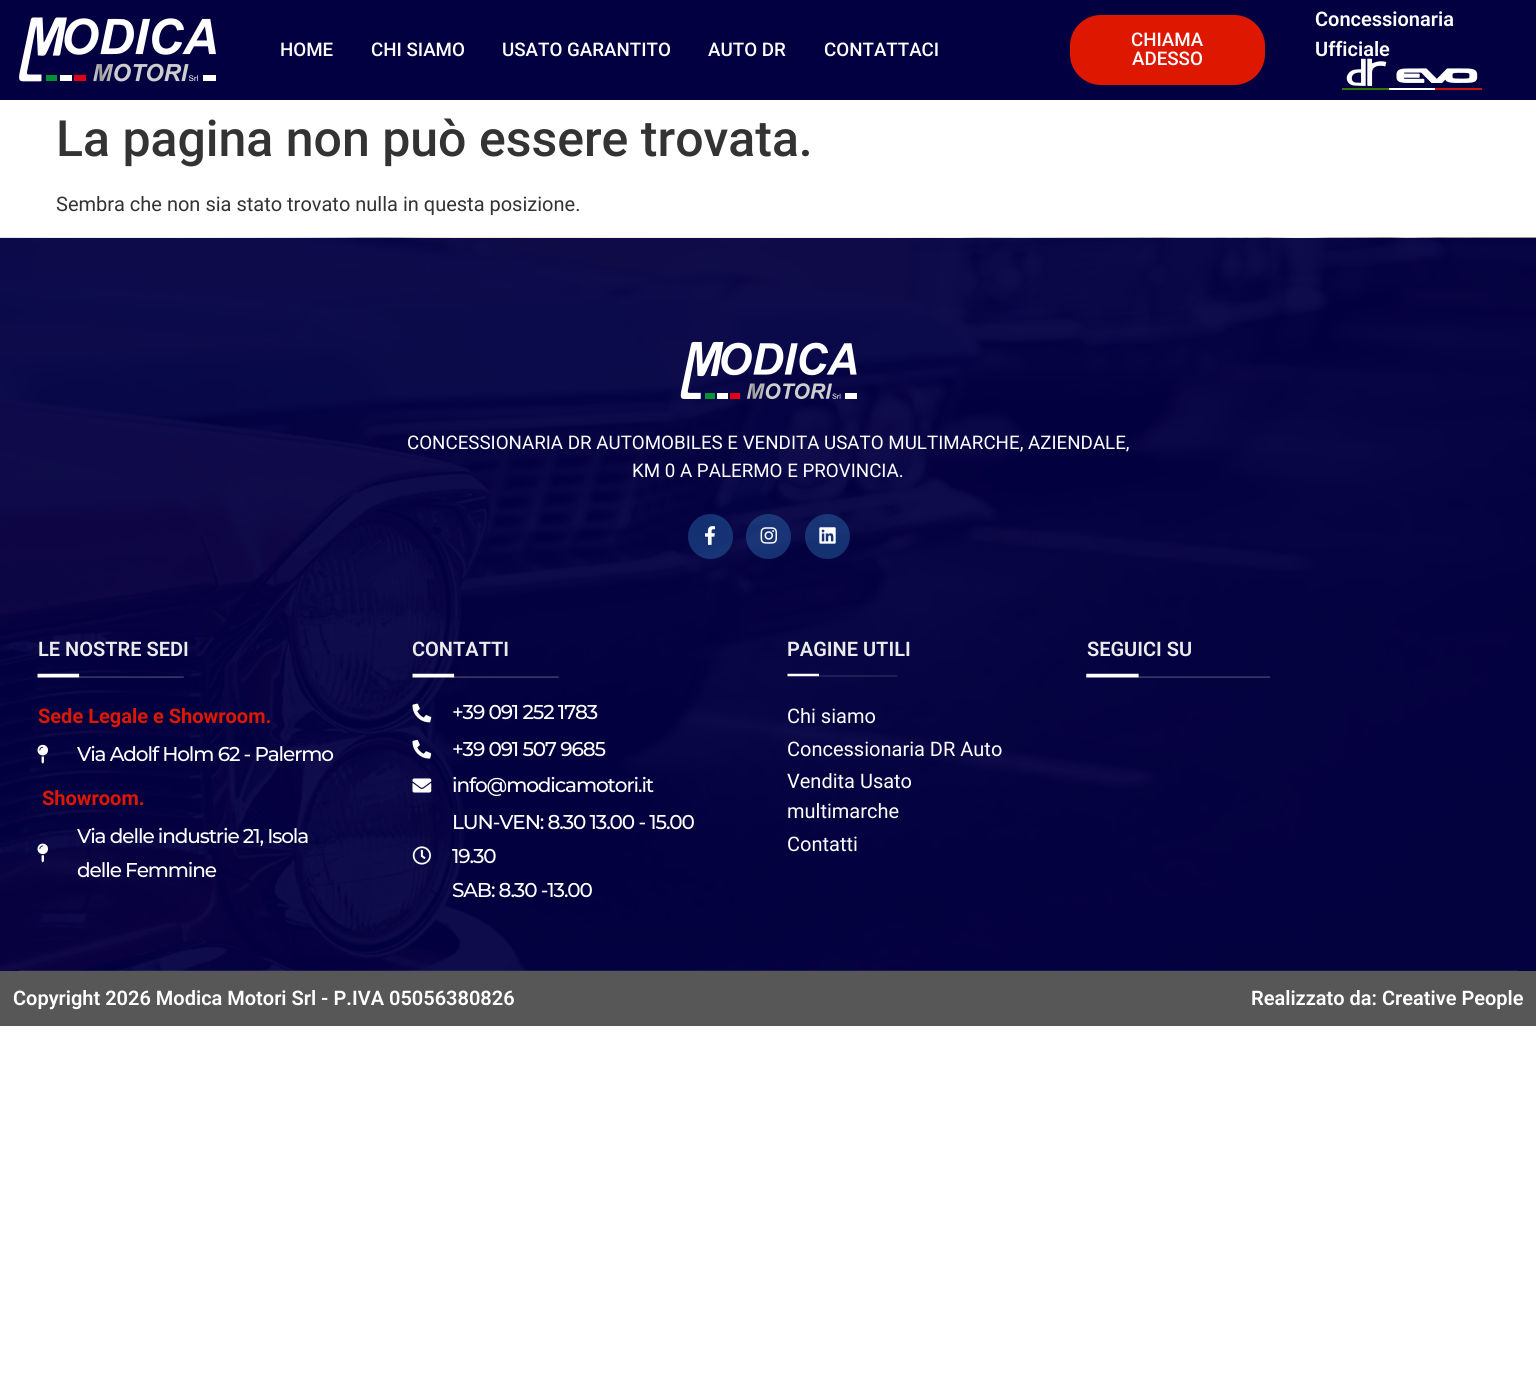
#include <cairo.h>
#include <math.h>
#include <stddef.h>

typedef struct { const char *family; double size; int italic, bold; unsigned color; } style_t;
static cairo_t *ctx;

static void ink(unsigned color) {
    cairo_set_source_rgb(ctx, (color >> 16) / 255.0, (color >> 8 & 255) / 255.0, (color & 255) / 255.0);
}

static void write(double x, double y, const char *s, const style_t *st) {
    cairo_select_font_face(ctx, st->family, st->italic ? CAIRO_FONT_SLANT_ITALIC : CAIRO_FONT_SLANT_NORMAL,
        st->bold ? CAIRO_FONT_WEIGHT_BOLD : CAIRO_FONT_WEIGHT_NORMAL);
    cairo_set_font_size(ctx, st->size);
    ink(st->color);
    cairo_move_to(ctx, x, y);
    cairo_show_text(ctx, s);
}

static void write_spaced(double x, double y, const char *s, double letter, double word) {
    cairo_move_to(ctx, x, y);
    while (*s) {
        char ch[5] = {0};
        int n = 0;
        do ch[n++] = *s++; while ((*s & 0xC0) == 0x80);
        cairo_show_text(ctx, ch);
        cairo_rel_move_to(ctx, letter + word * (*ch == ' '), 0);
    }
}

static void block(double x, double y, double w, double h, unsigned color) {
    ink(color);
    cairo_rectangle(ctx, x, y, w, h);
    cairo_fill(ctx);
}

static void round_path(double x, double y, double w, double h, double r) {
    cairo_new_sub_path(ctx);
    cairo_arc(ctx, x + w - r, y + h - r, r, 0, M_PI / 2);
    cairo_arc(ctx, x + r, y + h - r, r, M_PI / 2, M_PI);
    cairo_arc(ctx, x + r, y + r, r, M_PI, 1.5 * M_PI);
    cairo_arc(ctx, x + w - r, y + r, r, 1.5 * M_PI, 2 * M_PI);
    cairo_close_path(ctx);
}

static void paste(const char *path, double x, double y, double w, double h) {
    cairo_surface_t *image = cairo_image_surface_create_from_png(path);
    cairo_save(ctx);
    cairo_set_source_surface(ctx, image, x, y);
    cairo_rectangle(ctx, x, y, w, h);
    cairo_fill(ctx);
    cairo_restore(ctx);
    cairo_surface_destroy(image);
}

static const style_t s1 = {"Roboto Medium", 18.75, 0, 0, 0xffffff};
static const style_t s2 = {"Roboto SemiBold", 20, 0, 0, 0xffffff};
static const style_t s3 = {"Roboto Medium", 50, 0, 0, 0x333333};
static const style_t s4 = {"Roboto", 20, 0, 0, 0x333333};
static const style_t s5 = {"Roboto", 18.75, 0, 0, 0xffffff};
static const style_t s6 = {"Roboto SemiBold", 20, 0, 0, 0xececec};
static const style_t s7 = {"Roboto", 20, 0, 1, 0xdd1700};
static const style_t s8 = {"Roboto", 20, 0, 0, 0xffffff};

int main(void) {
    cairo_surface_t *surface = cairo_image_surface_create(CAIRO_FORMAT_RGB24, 1536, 1383);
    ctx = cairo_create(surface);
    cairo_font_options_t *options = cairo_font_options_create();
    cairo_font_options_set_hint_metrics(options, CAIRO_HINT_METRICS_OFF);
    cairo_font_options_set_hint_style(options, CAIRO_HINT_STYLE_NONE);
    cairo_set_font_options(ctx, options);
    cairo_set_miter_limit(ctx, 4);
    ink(0xffffff);
    cairo_paint(ctx);
    block(0, 0, 1536, 100, 0x030042);
    paste("pic1.png", 19, 17, 197, 65);
    write(280, 56, "HOME", &s1);
    write(371, 56, "CHI SIAMO", &s1);
    write(502, 56, "USATO GARANTITO", &s1);
    write(708, 56, "AUTO DR", &s1);
    write(824, 56, "CONTATTACI", &s1);
    ink(0xdd1700);
    round_path(1070, 15, 195, 70, 31);
    cairo_fill(ctx);
    write(1131, 46, "CHIAMA", &s1);
    write(1132, 65, "ADESSO", &s1);
    write(1315, 26, "Concessionaria", &s2);
    write(1315, 56, "Ufficiale", &s2);
    paste("pic2.png", 1342, 58, 140, 32);
    write(56, 156, "La pagina non può essere trovata.", &s3);
    write(56, 211, "Sembra che non sia stato trovato nulla in questa posizione.", &s4);
    paste("pic3.png", 0, 237, 1536, 734);
    paste("pic4.png", 680, 341, 177, 59);
    write(407, 449, "CONCESSIONARIA DR AUTOMOBILES E VENDITA USATO MULTIMARCHE, AZIENDALE,", &s5);
    write(632, 477, "KM 0 A PALERMO E PROVINCIA.", &s5);
    cairo_set_source_rgba(ctx, 0.173, 0.459, 0.729, 0.41);
    cairo_new_path(ctx);
    cairo_arc(ctx, 710.5, 536.5, 22.5, 0, 2 * M_PI);
    cairo_fill(ctx);
    paste("pic5.png", 705, 526, 10, 19);
    cairo_arc(ctx, 768.5, 536.5, 22.5, 0, 2 * M_PI);
    cairo_fill(ctx);
    paste("pic6.png", 760, 527, 17, 17);
    cairo_arc(ctx, 827.5, 536.5, 22.5, 0, 2 * M_PI);
    cairo_fill(ctx);
    paste("pic7.png", 819, 527, 17, 17);
    cairo_set_source_rgba(ctx, 0.851, 0.851, 0.851, 0.09);
    cairo_rectangle(ctx, 19, 970, 1499, 1);
    cairo_fill(ctx);
    write(38, 656, "LE NOSTRE SEDI", &s6);
    paste("pic8.png", 37, 673, 147, 5);
    write(38, 723, "Sede Legale e Showroom.", &s7);
    paste("pic9.png", 37, 744, 11, 20);
    cairo_select_font_face(ctx, "Montserrat Medium", CAIRO_FONT_SLANT_NORMAL, CAIRO_FONT_WEIGHT_NORMAL);
    ink(0xffffff);
    write_spaced(77, 761, "Via Adolf Holm 62 - Palermo", -1.1, 0);
    write(42, 805, "Showroom.", &s7);
    paste("pic10.png", 37, 843, 11, 20);
    cairo_select_font_face(ctx, "Montserrat Medium", CAIRO_FONT_SLANT_NORMAL, CAIRO_FONT_WEIGHT_NORMAL);
    ink(0xffffff);
    write_spaced(77, 843, "Via delle industrie 21, Isola", -1.1, 0);
    write_spaced(77, 877, "delle Femmine", -1.1, 0);
    write(412, 656, "CONTATTI", &s6);
    paste("pic11.png", 412, 673, 147, 5);
    paste("pic12.png", 412, 703, 20, 20);
    cairo_select_font_face(ctx, "Montserrat Medium", CAIRO_FONT_SLANT_NORMAL, CAIRO_FONT_WEIGHT_NORMAL);
    ink(0xffffff);
    write_spaced(452, 719, "+39 091 252 1783", -1.1, 0);
    paste("pic13.png", 412, 739, 20, 20);
    write_spaced(452, 756, "+39 091 507 9685", -1.1, 0);
    paste("pic14.png", 412, 778, 20, 15);
    write_spaced(452, 792, "info@modicamotori.it", -1.1, 0);
    paste("pic15.png", 412, 846, 19, 19);
    write_spaced(452, 829, "LUN-VEN: 8.30 13.00 - 15.00", -1.1, 0);
    write_spaced(452, 863, "19.30", -1.1, 0);
    write_spaced(452, 897, "SAB: 8.30 -13.00", -1.1, 0);
    write(787, 656, "PAGINE UTILI", &s6);
    paste("pic16.png", 787, 673, 111, 4);
    write(787, 723, "Chi siamo", &s8);
    write(787, 756, "Concessionaria DR Auto", &s8);
    write(787, 788, "Vendita Usato", &s8);
    write(787, 818, "multimarche", &s8);
    write(787, 851, "Contatti", &s8);
    write(1087, 656, "SEGUICI SU", &s6);
    paste("pic17.png", 1086, 673, 184, 5);
    block(0, 971, 1536, 55, 0x575757);
    write(13, 1005, "Copyright 2026 Modica Motori Srl - P.IVA 05056380826", &s2);
    write(1251, 1005, "Realizzato da: Creative People", &s2);
    cairo_surface_write_to_png(surface, "screenshot.png");
    cairo_font_options_destroy(options);
    cairo_destroy(ctx);
    cairo_surface_destroy(surface);
    return 0;
}
